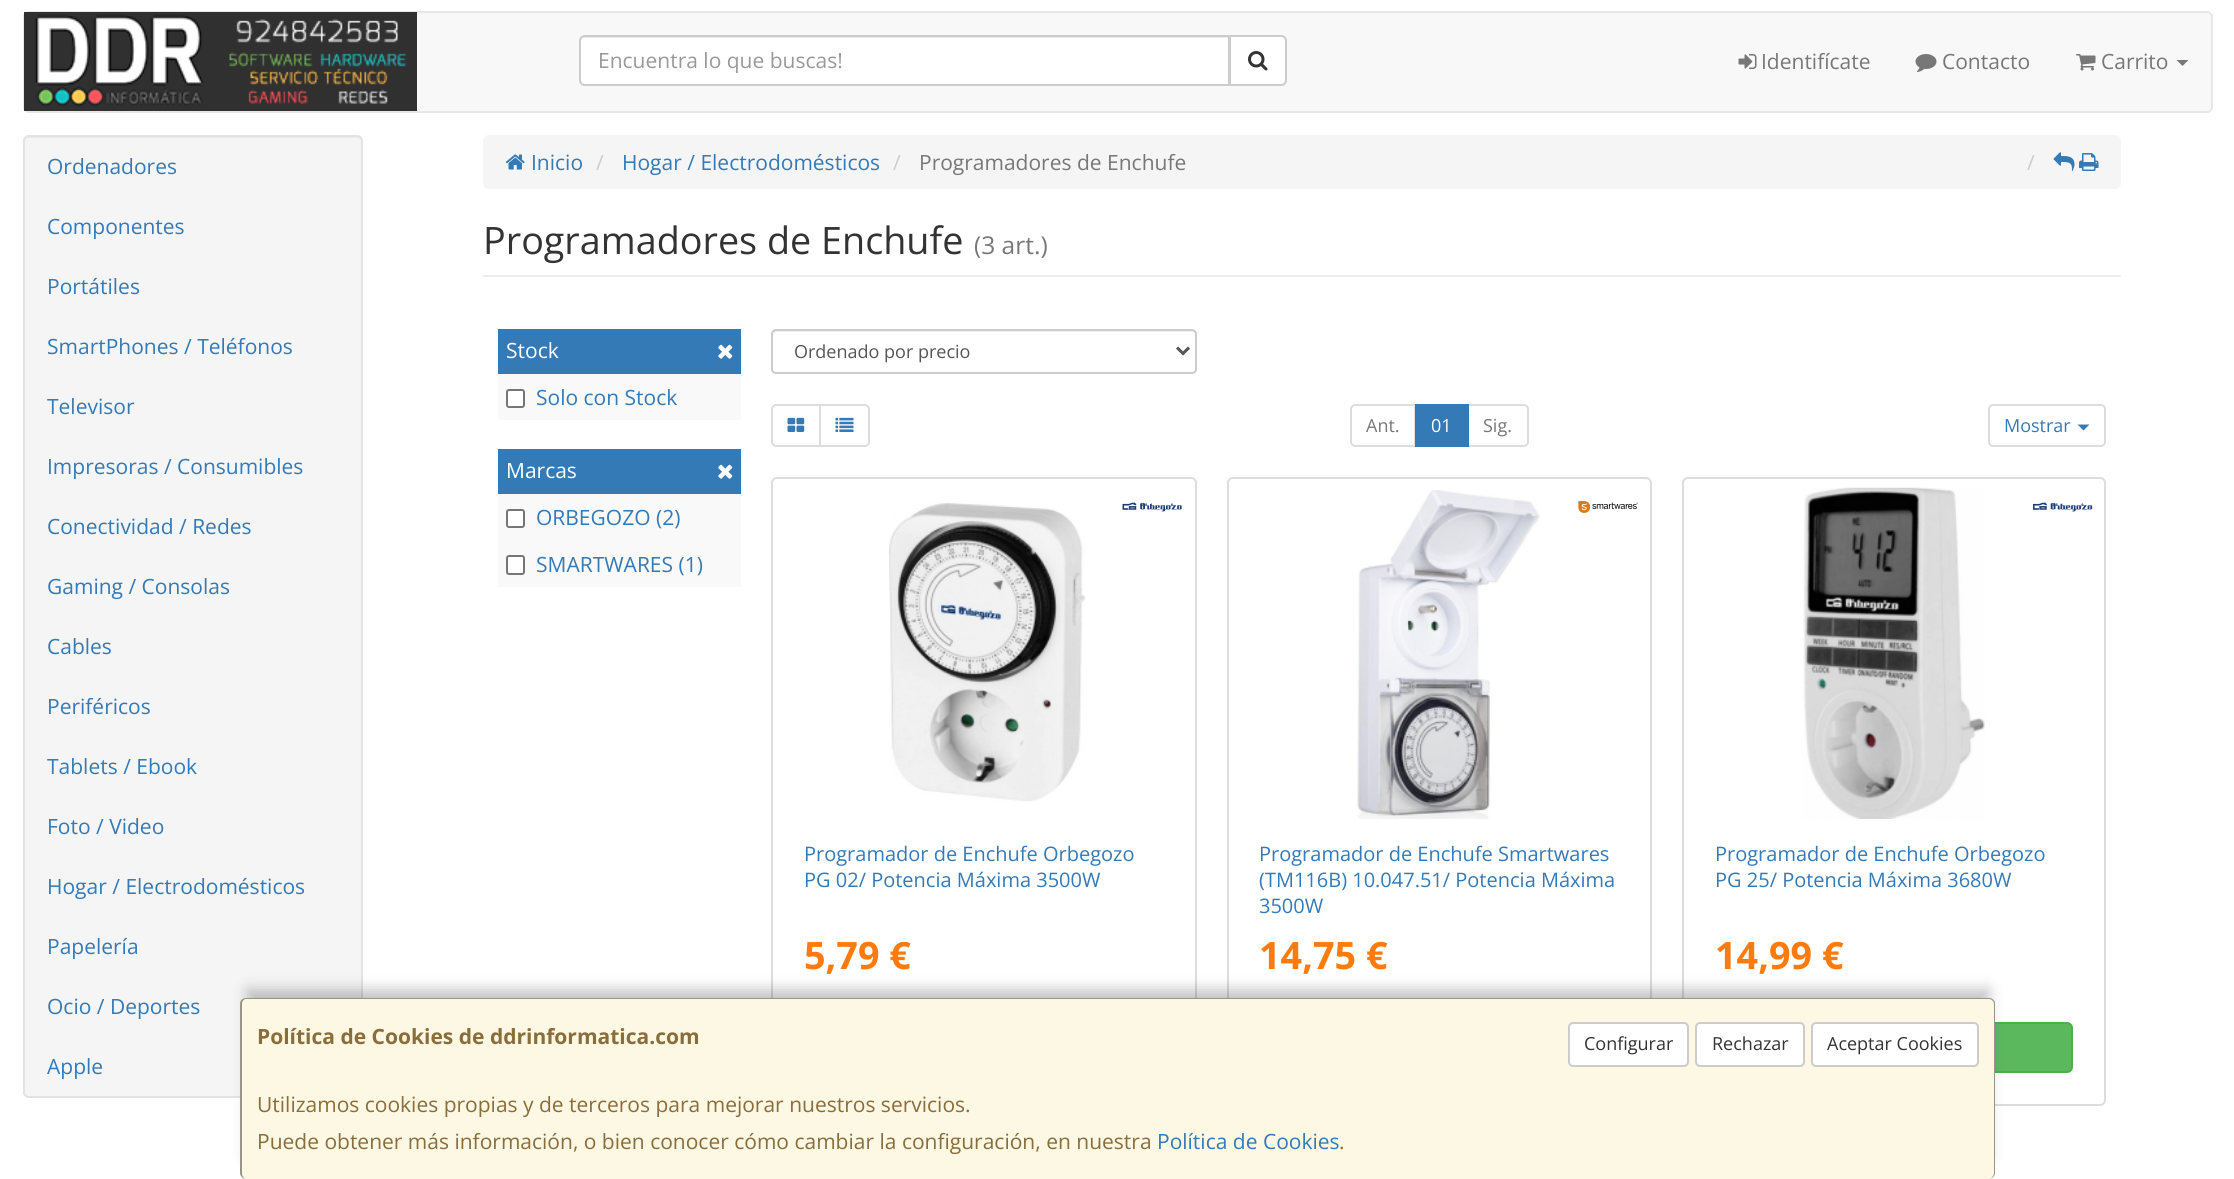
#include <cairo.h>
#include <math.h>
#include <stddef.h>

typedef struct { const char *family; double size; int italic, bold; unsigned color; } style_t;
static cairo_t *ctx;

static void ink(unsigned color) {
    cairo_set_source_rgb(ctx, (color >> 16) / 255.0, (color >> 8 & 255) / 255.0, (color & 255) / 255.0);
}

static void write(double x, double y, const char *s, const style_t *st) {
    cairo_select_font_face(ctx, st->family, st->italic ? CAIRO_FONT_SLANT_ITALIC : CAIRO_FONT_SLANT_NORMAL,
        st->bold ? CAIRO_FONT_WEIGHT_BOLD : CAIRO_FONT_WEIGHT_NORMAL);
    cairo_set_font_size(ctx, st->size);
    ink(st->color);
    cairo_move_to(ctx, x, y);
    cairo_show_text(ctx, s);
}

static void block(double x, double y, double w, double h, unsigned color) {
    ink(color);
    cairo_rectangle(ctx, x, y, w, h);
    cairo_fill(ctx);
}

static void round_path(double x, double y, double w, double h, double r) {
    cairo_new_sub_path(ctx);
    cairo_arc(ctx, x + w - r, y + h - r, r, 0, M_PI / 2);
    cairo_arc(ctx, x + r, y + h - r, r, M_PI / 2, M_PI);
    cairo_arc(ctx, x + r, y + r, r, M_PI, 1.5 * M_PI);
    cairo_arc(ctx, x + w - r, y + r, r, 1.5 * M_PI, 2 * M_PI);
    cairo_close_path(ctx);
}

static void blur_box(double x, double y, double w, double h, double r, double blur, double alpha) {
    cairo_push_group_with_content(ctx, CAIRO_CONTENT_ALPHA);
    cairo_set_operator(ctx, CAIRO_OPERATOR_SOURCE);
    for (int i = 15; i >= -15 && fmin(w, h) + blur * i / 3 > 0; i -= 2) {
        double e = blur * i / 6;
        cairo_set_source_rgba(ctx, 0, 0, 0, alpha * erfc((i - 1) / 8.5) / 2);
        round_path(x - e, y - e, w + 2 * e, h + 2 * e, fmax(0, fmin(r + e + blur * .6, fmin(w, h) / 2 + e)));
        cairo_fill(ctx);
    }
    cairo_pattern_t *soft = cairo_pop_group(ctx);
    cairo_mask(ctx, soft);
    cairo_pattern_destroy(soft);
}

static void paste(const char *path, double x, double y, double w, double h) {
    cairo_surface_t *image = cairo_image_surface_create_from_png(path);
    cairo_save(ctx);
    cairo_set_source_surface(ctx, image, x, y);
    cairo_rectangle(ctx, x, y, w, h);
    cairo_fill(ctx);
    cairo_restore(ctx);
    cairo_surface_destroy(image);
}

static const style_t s1 = {"Open Sans", 21, 0, 0, 0x999999};
static const style_t s2 = {"Open Sans", 21, 0, 0, 0x777777};
static const style_t s3 = {"Open Sans", 21, 0, 0, 0x337ab7};
static const style_t s4 = {"Open Sans", 21, 0, 0, 0xcccccc};
static const style_t s5 = {"Open Sans", 37.75, 0, 0, 0x333333};
static const style_t s6 = {"Open Sans", 24.5, 0, 0, 0x777777};
static const style_t s7 = {"Open Sans", 21, 0, 0, 0xffffff};
static const style_t s8 = {"Open Sans", 18, 0, 0, 0x555555};
static const style_t s9 = {"Open Sans", 18, 0, 0, 0x777777};
static const style_t s10 = {"Open Sans", 18, 0, 0, 0xffffff};
static const style_t s11 = {"Open Sans", 18, 0, 0, 0x337ab7};
static const style_t s12 = {"Open Sans", 20, 0, 0, 0x337ab7};
static const style_t s13 = {"Open Sans", 37.75, 0, 1, 0xff7b0d};
static const style_t s14 = {"Open Sans", 21, 0, 1, 0x8a6d3b};
static const style_t s15 = {"Open Sans", 18, 0, 0, 0x333333};
static const style_t s16 = {"Open Sans", 21, 0, 0, 0x8a6d3b};

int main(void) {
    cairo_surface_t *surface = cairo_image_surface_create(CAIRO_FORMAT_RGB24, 2234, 1179);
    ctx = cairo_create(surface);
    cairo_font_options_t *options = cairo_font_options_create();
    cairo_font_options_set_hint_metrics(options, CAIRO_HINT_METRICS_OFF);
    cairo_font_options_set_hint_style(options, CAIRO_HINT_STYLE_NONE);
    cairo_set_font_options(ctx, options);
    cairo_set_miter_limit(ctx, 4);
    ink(0xffffff);
    cairo_paint(ctx);
    ink(0xf8f8f8);
    round_path(24, 12, 2188, 100, 5);
    cairo_fill_preserve(ctx);
    ink(0xe7e7e7);
    cairo_stroke(ctx);
    paste("pic1.png", 24, 12, 393, 99);
    ink(0xffffff);
    cairo_new_path(ctx);
    cairo_move_to(ctx, 1230, 36);
    cairo_line_to(ctx, 1281, 36);
    cairo_curve_to(ctx, 1284, 36, 1286, 38, 1286, 41);
    cairo_line_to(ctx, 1286, 80);
    cairo_curve_to(ctx, 1286, 83, 1284, 85, 1281, 85);
    cairo_line_to(ctx, 1230, 85);
    cairo_close_path(ctx);
    cairo_fill_preserve(ctx);
    ink(0xcccccc);
    cairo_stroke(ctx);
    ink(0xffffff);
    cairo_new_path(ctx);
    cairo_move_to(ctx, 585, 35);
    cairo_line_to(ctx, 1230, 35);
    cairo_line_to(ctx, 1230, 86);
    cairo_line_to(ctx, 585, 86);
    cairo_curve_to(ctx, 581.5, 86, 579, 83.5, 579, 80);
    cairo_line_to(ctx, 579, 41);
    cairo_curve_to(ctx, 579, 37.5, 581.5, 35, 585, 35);
    cairo_close_path(ctx);
    cairo_fill(ctx);
    ink(0xececec);
    cairo_new_path(ctx);
    cairo_move_to(ctx, 585, 38);
    cairo_line_to(ctx, 1228, 38);
    cairo_line_to(ctx, 1228, 84);
    cairo_line_to(ctx, 1229, 84);
    cairo_line_to(ctx, 1229, 36);
    cairo_line_to(ctx, 586, 36);
    cairo_curve_to(ctx, 584, 36, 582, 38, 581, 40);
    cairo_curve_to(ctx, 582, 39, 584, 38, 585, 38);
    cairo_close_path(ctx);
    cairo_fill(ctx);
    cairo_new_path(ctx);
    cairo_move_to(ctx, 585, 36);
    cairo_line_to(ctx, 1229, 36);
    cairo_line_to(ctx, 1229, 85);
    cairo_line_to(ctx, 585, 85);
    cairo_curve_to(ctx, 582, 85, 580, 83, 580, 80);
    cairo_line_to(ctx, 580, 41);
    cairo_curve_to(ctx, 580, 38, 582, 36, 585, 36);
    cairo_close_path(ctx);
    ink(0xcccccc);
    cairo_stroke(ctx);
    write(598, 68, "Encuentra lo que buscas!", &s1);
    paste("pic2.png", 1248, 51, 20, 20);
    paste("pic3.png", 1738, 54, 19, 15);
    write(1761, 69, "Identifícate", &s2);
    paste("pic4.png", 1915, 54, 22, 18);
    write(1942, 69, "Contacto", &s2);
    paste("pic5.png", 2076, 54, 20, 17);
    write(2101, 69, "Carrito", &s2);
    cairo_new_path(ctx);
    cairo_move_to(ctx, 2176.5, 60);
    cairo_line_to(ctx, 2188.5, 60);
    cairo_line_to(ctx, 2182.5, 66);
    cairo_close_path(ctx);
    cairo_fill(ctx);
    ink(0xf5f5f5);
    round_path(23, 135, 340, 963, 6);
    cairo_fill(ctx);
    ink(0xe9e9e9);
    cairo_new_path(ctx);
    cairo_move_to(ctx, 28, 138);
    cairo_line_to(ctx, 357, 138);
    cairo_curve_to(ctx, 359, 138, 362, 140, 362, 142);
    cairo_curve_to(ctx, 362, 139, 360, 137, 357, 137);
    cairo_line_to(ctx, 29, 137);
    cairo_curve_to(ctx, 26, 137, 24, 139, 24, 142);
    cairo_curve_to(ctx, 24, 140, 26, 138, 28, 138);
    cairo_close_path(ctx);
    cairo_fill(ctx);
    round_path(24, 136, 338, 961, 5);
    ink(0xe3e3e3);
    cairo_stroke(ctx);
    write(47, 174, "Ordenadores", &s3);
    write(47, 234, "Componentes", &s3);
    write(47, 294, "Portátiles", &s3);
    write(47, 354, "SmartPhones / Teléfonos", &s3);
    write(47, 414, "Televisor", &s3);
    write(47, 474, "Impresoras / Consumibles", &s3);
    write(47, 534, "Conectividad / Redes", &s3);
    write(47, 594, "Gaming / Consolas", &s3);
    write(47, 654, "Cables", &s3);
    write(47, 714, "Periféricos", &s3);
    write(47, 774, "Tablets / Ebook", &s3);
    write(47, 834, "Foto / Video", &s3);
    write(47, 894, "Hogar / Electrodomésticos", &s3);
    write(47, 954, "Papelería", &s3);
    write(47, 1014, "Ocio / Deportes", &s3);
    write(47, 1074, "Apple", &s3);
    ink(0xf5f5f5);
    round_path(483, 135, 1638, 54, 6);
    cairo_fill(ctx);
    paste("pic6.png", 505, 154, 20, 16);
    write(531, 170, "Inicio", &s3);
    write(596, 170, "/", &s4);
    write(622, 170, "Hogar / Electrodomésticos", &s3);
    write(893, 170, "/", &s4);
    write(919, 170, "Programadores de Enchufe", &s2);
    write(2027, 170, "/", &s4);
    paste("pic7.png", 2053, 152, 22, 19);
    paste("pic8.png", 2079, 153, 20, 18);
    block(483, 275, 1638, 2, 0xeeeeee);
    write(483, 254, "Programadores de Enchufe", &s5);
    write(974, 254, "(3 art.)", &s6);
    block(498, 329, 243, 45, 0x337ab7);
    write(506, 358, "Stock", &s7);
    paste("pic9.png", 718, 344, 15, 15);
    block(498, 374, 243, 46, 0xf9f9f9);
    ink(0xffffff);
    round_path(507, 390, 17, 17, 2);
    cairo_fill_preserve(ctx);
    ink(0x767676);
    cairo_stroke(ctx);
    write(536, 405, "Solo con Stock", &s3);
    block(498, 449, 243, 45, 0x337ab7);
    write(506, 478, "Marcas", &s7);
    paste("pic9.png", 718, 464, 15, 15);
    block(498, 494, 243, 93, 0xf9f9f9);
    ink(0xffffff);
    round_path(507, 510, 17, 17, 2);
    cairo_fill_preserve(ctx);
    ink(0x767676);
    cairo_stroke(ctx);
    write(536, 525, "ORBEGOZO (2)", &s3);
    ink(0xffffff);
    round_path(507, 556, 17, 18, 2);
    cairo_fill_preserve(ctx);
    ink(0x767676);
    cairo_stroke(ctx);
    write(536, 572, "SMARTWARES (1)", &s3);
    ink(0xececec);
    cairo_new_path(ctx);
    cairo_move_to(ctx, 776, 332);
    cairo_line_to(ctx, 1192, 332);
    cairo_curve_to(ctx, 1194, 332, 1196, 333, 1196, 334);
    cairo_curve_to(ctx, 1196, 332, 1195, 330, 1193, 330);
    cairo_line_to(ctx, 776, 330);
    cairo_curve_to(ctx, 774, 330, 773, 331, 773, 333);
    cairo_close_path(ctx);
    cairo_fill(ctx);
    round_path(772, 330, 424, 43, 4);
    ink(0xcccccc);
    cairo_stroke(ctx);
    cairo_new_path(ctx);
    cairo_move_to(ctx, 1177, 347.5);
    cairo_line_to(ctx, 1183, 353.5);
    cairo_line_to(ctx, 1189, 347.5);
    ink(0x555555);
    cairo_set_line_width(ctx, 3);
    cairo_stroke(ctx);
    write(794, 358, "Ordenado por precio", &s8);
    cairo_new_path(ctx);
    cairo_move_to(ctx, 776, 405);
    cairo_line_to(ctx, 820, 405);
    cairo_line_to(ctx, 820, 446);
    cairo_line_to(ctx, 776, 446);
    cairo_curve_to(ctx, 774, 446, 772, 444, 772, 442);
    cairo_line_to(ctx, 772, 409);
    cairo_curve_to(ctx, 772, 407, 774, 405, 776, 405);
    cairo_close_path(ctx);
    ink(0xdddddd);
    cairo_set_line_width(ctx, 2);
    cairo_stroke(ctx);
    paste("pic10.png", 787, 417, 18, 15);
    ink(0xffffff);
    cairo_new_path(ctx);
    cairo_move_to(ctx, 820, 405);
    cairo_line_to(ctx, 865, 405);
    cairo_curve_to(ctx, 867, 405, 869, 407, 869, 409);
    cairo_line_to(ctx, 869, 442);
    cairo_curve_to(ctx, 869, 444, 867, 446, 865, 446);
    cairo_line_to(ctx, 820, 446);
    cairo_close_path(ctx);
    cairo_fill_preserve(ctx);
    ink(0xdddddd);
    cairo_stroke(ctx);
    paste("pic11.png", 835, 417, 19, 15);
    cairo_new_path(ctx);
    cairo_move_to(ctx, 1355, 405);
    cairo_line_to(ctx, 1415, 405);
    cairo_line_to(ctx, 1415, 446);
    cairo_line_to(ctx, 1355, 446);
    cairo_curve_to(ctx, 1353, 446, 1351, 444, 1351, 442);
    cairo_line_to(ctx, 1351, 409);
    cairo_curve_to(ctx, 1351, 407, 1353, 405, 1355, 405);
    cairo_close_path(ctx);
    cairo_stroke(ctx);
    write(1366, 432, "Ant.", &s9);
    cairo_new_path(ctx);
    cairo_move_to(ctx, 1468, 405);
    cairo_line_to(ctx, 1524, 405);
    cairo_curve_to(ctx, 1526, 405, 1528, 407, 1528, 409);
    cairo_line_to(ctx, 1528, 442);
    cairo_curve_to(ctx, 1528, 444, 1526, 446, 1524, 446);
    cairo_line_to(ctx, 1468, 446);
    cairo_close_path(ctx);
    ink(0xdddddd);
    cairo_stroke(ctx);
    block(1415, 404, 54, 43, 0x337ab7);
    write(1431, 432, "01", &s10);
    write(1483, 432, "Sig.", &s9);
    round_path(1989, 405, 116, 41, 4);
    ink(0xdddddd);
    cairo_stroke(ctx);
    write(2004, 432, "Mostrar", &s11);
    cairo_new_path(ctx);
    cairo_move_to(ctx, 2077.5, 424.5);
    cairo_line_to(ctx, 2089.5, 424.5);
    cairo_line_to(ctx, 2083.5, 430.5);
    cairo_close_path(ctx);
    cairo_fill(ctx);
    round_path(772, 478, 424, 627, 5);
    ink(0xdddddd);
    cairo_stroke(ctx);
    paste("pic12.png", 889, 502, 197, 300);
    paste("pic13.png", 1122, 502, 60, 10);
    write(804, 861, "Programador de Enchufe Orbegozo", &s12);
    write(804, 887, "PG 02/ Potencia Máxima 3500W", &s12);
    write(804, 969, "5,79 €", &s13);
    round_path(1228, 478, 423, 627, 5);
    ink(0xdddddd);
    cairo_stroke(ctx);
    paste("pic14.png", 1357, 490, 183, 329);
    paste("pic15.png", 1578, 501, 60, 12);
    write(1259, 861, "Programador de Enchufe Smartwares", &s12);
    write(1259, 887, "(TM116B) 10.047.51/ Potencia Máxima", &s12);
    write(1259, 913, "3500W", &s12);
    write(1259, 969, "14,75 €", &s13);
    round_path(1683, 478, 422, 627, 5);
    ink(0xdddddd);
    cairo_stroke(ctx);
    paste("pic16.png", 1803, 487, 182, 332);
    paste("pic17.png", 2033, 502, 60, 10);
    write(1715, 861, "Programador de Enchufe Orbegozo", &s12);
    write(1715, 887, "PG 25/ Potencia Máxima 3680W", &s12);
    write(1715, 969, "14,99 €", &s13);
    ink(0x5cb85c);
    round_path(1716, 1023, 356, 49, 5);
    cairo_fill_preserve(ctx);
    ink(0x4cae4c);
    cairo_stroke(ctx);
    ink(0x000000);
    blur_box(248, 990, 1740, 167, 0, 7.5, 0.25);
    ink(0xfcf8e3);
    round_path(240, 998, 1755, 181, 6);
    cairo_fill(ctx);
    cairo_set_source_rgba(ctx, 0, 0, 0, 0.4);
    cairo_set_fill_rule(ctx, CAIRO_FILL_RULE_EVEN_ODD);
    cairo_new_path(ctx);
    cairo_move_to(ctx, 246, 998);
    cairo_line_to(ctx, 1989, 998);
    cairo_curve_to(ctx, 1992, 998, 1995, 1000, 1995, 1004);
    cairo_line_to(ctx, 1995, 1173);
    cairo_curve_to(ctx, 1995, 1176, 1992, 1179, 1989, 1179);
    cairo_line_to(ctx, 246, 1179);
    cairo_curve_to(ctx, 243, 1179, 240, 1176, 240, 1173);
    cairo_line_to(ctx, 240, 1004);
    cairo_curve_to(ctx, 240, 1000, 243, 998, 246, 998);
    cairo_close_path(ctx);
    cairo_move_to(ctx, 246, 999);
    cairo_line_to(ctx, 1989, 999);
    cairo_curve_to(ctx, 1991, 999, 1994, 1001, 1994, 1004);
    cairo_line_to(ctx, 1994, 1173);
    cairo_curve_to(ctx, 1994, 1176, 1991, 1179, 1989, 1179);
    cairo_line_to(ctx, 246, 1179);
    cairo_curve_to(ctx, 244, 1179, 242, 1176, 242, 1173);
    cairo_line_to(ctx, 242, 1004);
    cairo_curve_to(ctx, 242, 1001, 244, 999, 246, 999);
    cairo_close_path(ctx);
    cairo_fill(ctx);
    write(257, 1044, "Política de Cookies de ddrinformatica.com", &s14);
    ink(0xffffff);
    round_path(1569, 1023, 119, 43, 4);
    cairo_fill_preserve(ctx);
    ink(0xcccccc);
    cairo_stroke(ctx);
    write(1584, 1050, "Configurar", &s15);
    ink(0xffffff);
    round_path(1696, 1023, 108, 43, 4);
    cairo_fill_preserve(ctx);
    ink(0xcccccc);
    cairo_stroke(ctx);
    write(1712, 1050, "Rechazar", &s15);
    ink(0xffffff);
    round_path(1812, 1023, 166, 43, 4);
    cairo_fill_preserve(ctx);
    ink(0xcccccc);
    cairo_stroke(ctx);
    write(1827, 1050, "Aceptar Cookies", &s15);
    write(257, 1112, "Utilizamos cookies propias y de terceros para mejorar nuestros servicios.", &s16);
    write(257, 1149, "Puede obtener más información, o bien conocer cómo cambiar la configuración, en nuestra", &s16);
    write(1157, 1149, "Política de Cookies", &s3);
    write(1339, 1149, ".", &s16);
    cairo_surface_write_to_png(surface, "screenshot.png");
    cairo_font_options_destroy(options);
    cairo_destroy(ctx);
    cairo_surface_destroy(surface);
    return 0;
}
